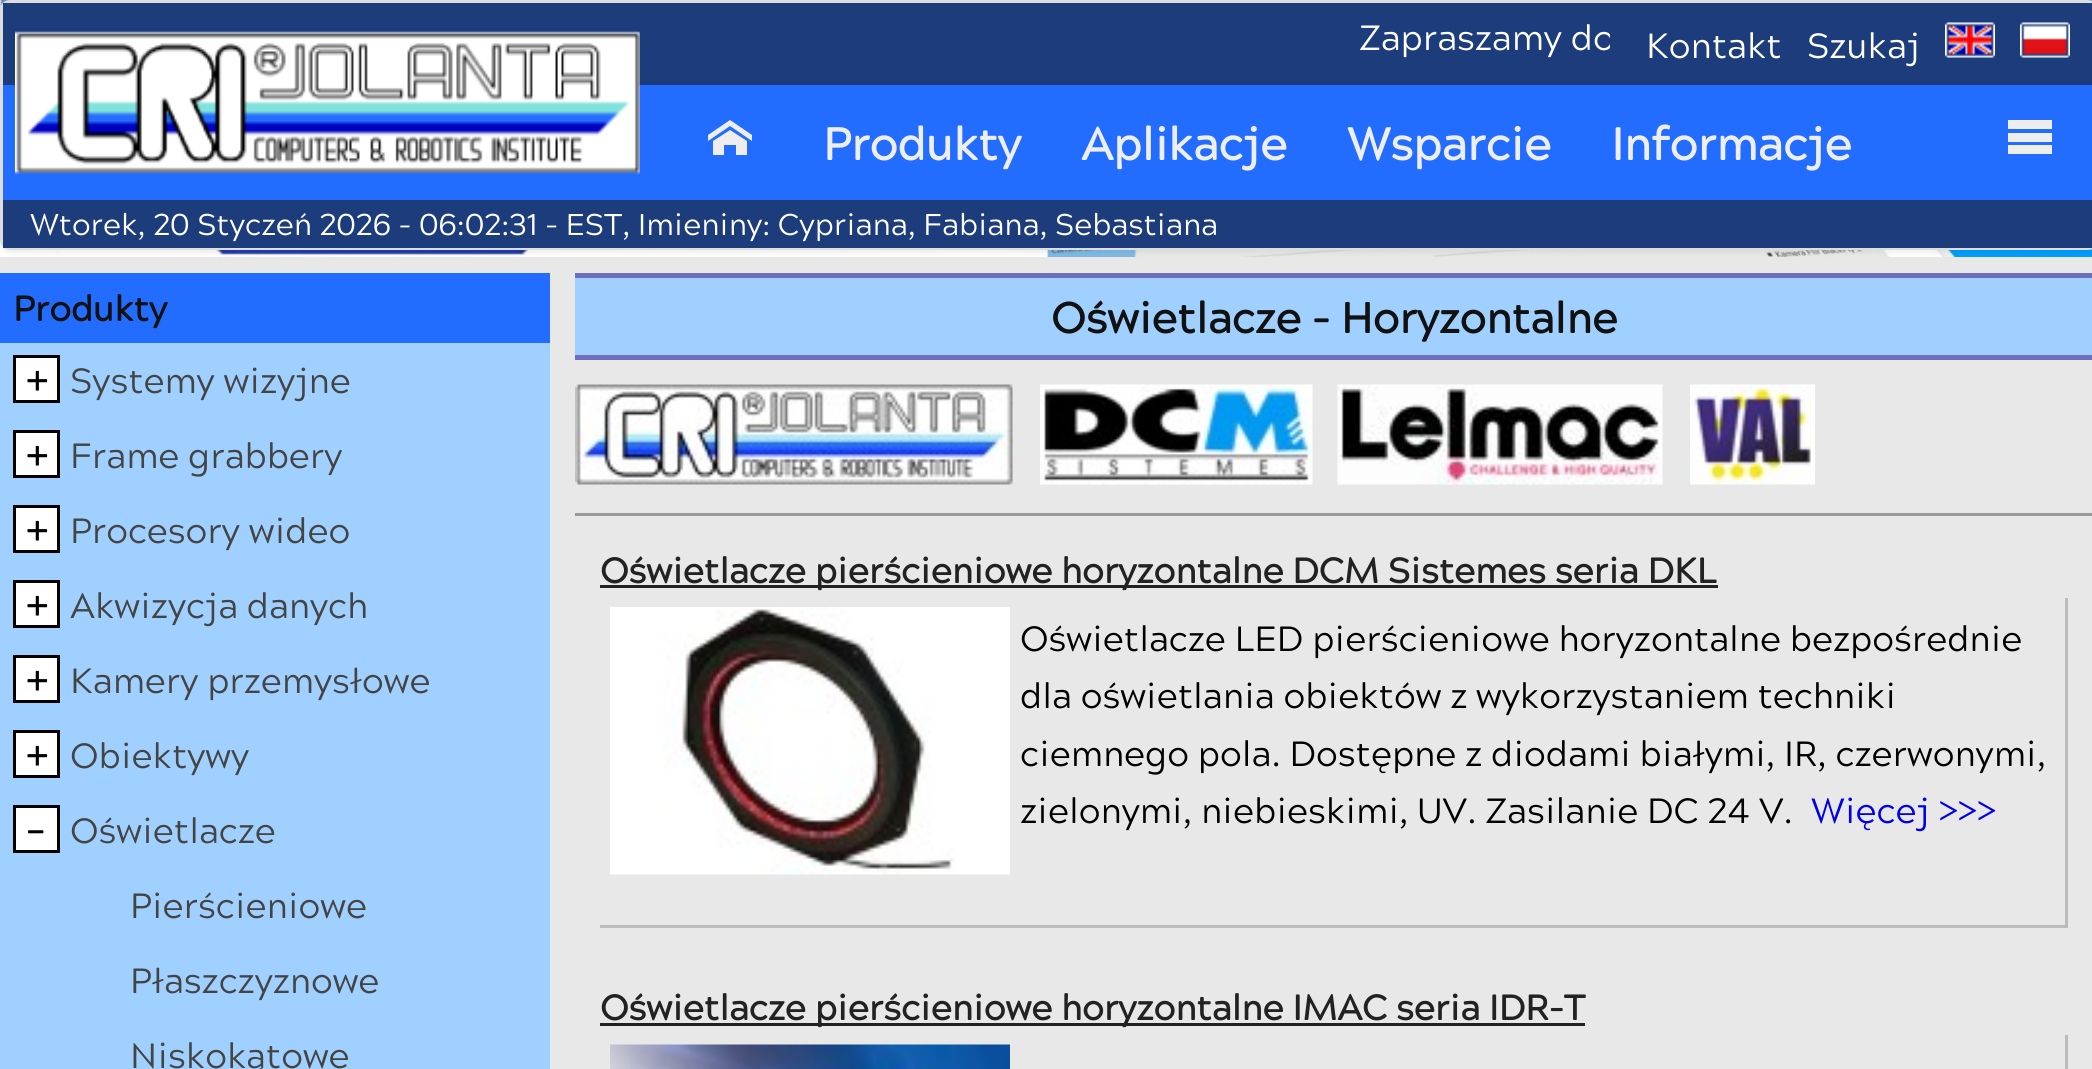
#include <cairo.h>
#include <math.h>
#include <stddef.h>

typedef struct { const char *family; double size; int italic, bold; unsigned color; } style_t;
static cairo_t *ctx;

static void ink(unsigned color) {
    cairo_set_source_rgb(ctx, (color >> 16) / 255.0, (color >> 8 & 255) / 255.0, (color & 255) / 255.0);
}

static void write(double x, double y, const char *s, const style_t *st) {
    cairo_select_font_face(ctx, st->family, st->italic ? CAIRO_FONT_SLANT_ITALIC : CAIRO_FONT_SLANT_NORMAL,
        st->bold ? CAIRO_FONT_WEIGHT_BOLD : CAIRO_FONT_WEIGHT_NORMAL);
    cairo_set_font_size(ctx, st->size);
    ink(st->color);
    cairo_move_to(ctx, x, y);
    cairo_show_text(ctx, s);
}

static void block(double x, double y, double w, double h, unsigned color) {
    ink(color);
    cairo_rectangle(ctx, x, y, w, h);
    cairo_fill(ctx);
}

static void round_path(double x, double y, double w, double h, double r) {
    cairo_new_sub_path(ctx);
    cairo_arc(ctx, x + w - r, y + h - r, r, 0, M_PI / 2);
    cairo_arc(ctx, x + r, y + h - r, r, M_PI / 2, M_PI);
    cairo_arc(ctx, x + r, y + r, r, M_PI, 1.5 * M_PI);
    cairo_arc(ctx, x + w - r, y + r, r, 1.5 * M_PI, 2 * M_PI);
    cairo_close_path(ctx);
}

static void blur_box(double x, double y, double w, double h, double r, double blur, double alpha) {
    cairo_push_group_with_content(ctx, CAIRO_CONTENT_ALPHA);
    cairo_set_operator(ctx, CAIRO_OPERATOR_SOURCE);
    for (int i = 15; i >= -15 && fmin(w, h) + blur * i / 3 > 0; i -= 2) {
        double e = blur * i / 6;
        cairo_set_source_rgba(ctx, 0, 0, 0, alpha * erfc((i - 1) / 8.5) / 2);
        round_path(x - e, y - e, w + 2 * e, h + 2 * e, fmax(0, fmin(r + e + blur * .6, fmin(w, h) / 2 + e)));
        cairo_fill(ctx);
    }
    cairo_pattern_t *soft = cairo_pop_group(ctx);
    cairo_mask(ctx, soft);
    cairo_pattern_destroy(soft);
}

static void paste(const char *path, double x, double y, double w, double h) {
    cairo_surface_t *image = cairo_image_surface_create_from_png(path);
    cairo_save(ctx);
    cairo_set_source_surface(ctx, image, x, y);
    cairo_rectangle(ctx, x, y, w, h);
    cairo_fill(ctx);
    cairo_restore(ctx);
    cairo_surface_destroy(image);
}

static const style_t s1 = {"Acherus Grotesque", 35, 0, 0, 0xffffff};
static const style_t s2 = {"Acherus Grotesque", 45, 0, 1, 0xeeeeee};
static const style_t s3 = {"Acherus Grotesque", 30, 0, 0, 0xffffff};
static const style_t s4 = {"Acherus Grotesque", 35, 0, 1, 0x111111};
static const style_t s5 = {"Acherus Grotesque", 50, 0, 0, 0x000000};
static const style_t s6 = {"Acherus Grotesque", 35, 0, 0, 0x444444};
static const style_t s7 = {"Acherus Grotesque", 42.5, 0, 1, 0x111111};
static const style_t s8 = {"Acherus Grotesque", 35, 0, 1, 0x222222};
static const style_t s9 = {"Acherus Grotesque", 35, 0, 0, 0x000000};
static const style_t s10 = {"Acherus Grotesque", 35, 0, 0, 0x0000ee};

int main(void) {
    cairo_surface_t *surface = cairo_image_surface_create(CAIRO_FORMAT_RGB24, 2092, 1069);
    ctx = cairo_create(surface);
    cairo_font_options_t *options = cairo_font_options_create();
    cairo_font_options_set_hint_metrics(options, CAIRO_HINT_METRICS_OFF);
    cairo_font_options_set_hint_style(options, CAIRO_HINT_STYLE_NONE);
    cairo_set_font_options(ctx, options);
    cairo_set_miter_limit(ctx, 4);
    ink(0xe8e8e8);
    cairo_paint(ctx);
    paste("pic4.png", 0, 0, 1048, 257);
    paste("pic5.png", 1047, 0, 1045, 257);
    ink(0x000000);
    blur_box(3, 8, 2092, 245, 8, 2.5, 0.06);
    round_path(1.5, 1.5, 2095, 247, 8.5);
    ink(0xdedede);
    cairo_set_line_width(ctx, 3);
    cairo_stroke(ctx);
    block(3, 3, 2089, 82, 0x1c3c7b);
    block(3, 85, 2089, 115, 0x226dff);
    paste("pic1.png", 15, 31, 625, 144);
    cairo_save(ctx);
    cairo_rectangle(ctx, 690, 8, 920, 57);
    cairo_clip(ctx);
    write(1359, 50, "Zapraszamy do", &s1);
    cairo_restore(ctx);
    write(1646, 58, "Kontakt", &s1);
    write(1807, 58, "Szukaj", &s1);
    paste("pic2.png", 1945, 22, 50, 36);
    paste("pic3.png", 2020, 22, 50, 36);
    ink(0xeeeeee);
    cairo_new_path(ctx);
    cairo_move_to(ctx, 752, 141);
    cairo_line_to(ctx, 752, 135);
    cairo_line_to(ctx, 730, 120);
    cairo_line_to(ctx, 708, 135);
    cairo_line_to(ctx, 708, 141);
    cairo_line_to(ctx, 730, 126);
    cairo_close_path(ctx);
    cairo_move_to(ctx, 747, 141);
    cairo_line_to(ctx, 730, 130);
    cairo_line_to(ctx, 713, 141);
    cairo_line_to(ctx, 713, 155);
    cairo_line_to(ctx, 724, 155);
    cairo_line_to(ctx, 724, 145);
    cairo_line_to(ctx, 736, 145);
    cairo_line_to(ctx, 736, 155);
    cairo_line_to(ctx, 747, 155);
    cairo_close_path(ctx);
    cairo_fill(ctx);
    write(823, 160, "Produkty", &s2);
    write(1081, 160, "Aplikacje", &s2);
    write(1347, 160, "Wsparcie", &s2);
    write(1611, 160, "Informacje", &s2);
    cairo_new_path(ctx);
    cairo_move_to(ctx, 2008, 120);
    cairo_line_to(ctx, 2008, 129);
    cairo_line_to(ctx, 2052, 129);
    cairo_line_to(ctx, 2052, 120);
    cairo_close_path(ctx);
    cairo_move_to(ctx, 2008, 133);
    cairo_line_to(ctx, 2008, 142);
    cairo_line_to(ctx, 2052, 142);
    cairo_line_to(ctx, 2052, 133);
    cairo_close_path(ctx);
    cairo_move_to(ctx, 2008, 145);
    cairo_line_to(ctx, 2008, 154);
    cairo_line_to(ctx, 2052, 154);
    cairo_line_to(ctx, 2052, 145);
    cairo_close_path(ctx);
    cairo_fill(ctx);
    block(3, 200, 2089, 48, 0x1c3c7b);
    write(30, 235, "Wtorek, 20 Styczeń 2026 - 06:02:31 - EST, Imieniny: Cypriana, Fabiana, Sebastiana", &s3);
    block(0, 273, 550, 70, 0x226dff);
    write(13, 321, "Produkty", &s4);
    block(0, 343, 550, 726, 0xa0d0ff);
    ink(0xffffff);
    cairo_rectangle(ctx, 14.5, 356.5, 44, 45);
    cairo_fill_preserve(ctx);
    ink(0x000000);
    cairo_stroke(ctx);
    write(25, 396, "+", &s5);
    write(70, 393, "Systemy wizyjne", &s6);
    ink(0xffffff);
    cairo_rectangle(ctx, 14.5, 431.5, 44, 45);
    cairo_fill_preserve(ctx);
    ink(0x000000);
    cairo_stroke(ctx);
    write(25, 471, "+", &s5);
    write(70, 468, "Frame grabbery", &s6);
    ink(0xffffff);
    cairo_rectangle(ctx, 14.5, 506.5, 44, 45);
    cairo_fill_preserve(ctx);
    ink(0x000000);
    cairo_stroke(ctx);
    write(25, 546, "+", &s5);
    write(70, 543, "Procesory wideo", &s6);
    ink(0xffffff);
    cairo_rectangle(ctx, 14.5, 581.5, 44, 45);
    cairo_fill_preserve(ctx);
    ink(0x000000);
    cairo_stroke(ctx);
    write(25, 621, "+", &s5);
    write(70, 618, "Akwizycja danych", &s6);
    ink(0xffffff);
    cairo_rectangle(ctx, 14.5, 656.5, 44, 45);
    cairo_fill_preserve(ctx);
    ink(0x000000);
    cairo_stroke(ctx);
    write(25, 696, "+", &s5);
    write(70, 693, "Kamery przemysłowe", &s6);
    ink(0xffffff);
    cairo_rectangle(ctx, 14.5, 731.5, 44, 45);
    cairo_fill_preserve(ctx);
    ink(0x000000);
    cairo_stroke(ctx);
    write(25, 771, "+", &s5);
    write(70, 768, "Obiektywy", &s6);
    ink(0xffffff);
    cairo_rectangle(ctx, 14.5, 806.5, 44, 45);
    cairo_fill_preserve(ctx);
    ink(0x000000);
    cairo_stroke(ctx);
    write(25, 846, "-", &s5);
    write(70, 843, "Oświetlacze", &s6);
    write(130, 918, "Pierścieniowe", &s6);
    write(130, 993, "Płaszczyznowe", &s6);
    write(130, 1068, "Niskokątowe", &s6);
    block(575, 278, 1517, 77, 0xa0d0ff);
    block(575, 273, 1517, 5, 0x6f6fbf);
    block(575, 355, 1517, 5, 0x6f6fbf);
    write(1051, 333, "Oświetlacze - Horyzontalne", &s7);
    paste("pic6.png", 575, 384, 438, 101);
    paste("pic7.png", 1040, 384, 273, 101);
    paste("pic8.png", 1337, 384, 326, 101);
    paste("pic9.png", 1690, 384, 125, 101);
    block(575, 513, 1517, 3, 0x999999);
    block(600, 585, 1118, 3, 0x222222);
    write(600, 583, "Oświetlacze pierścieniowe horyzontalne DCM Sistemes seria DKL", &s8);
    block(2065, 598, 3, 330, 0xbbbbbb);
    block(600, 925, 1468, 3, 0xbbbbbb);
    paste("pic10.png", 610, 607, 400, 268);
    write(1020, 651, "Oświetlacze LED pierścieniowe horyzontalne bezpośrednie", &s9);
    write(1020, 708, "dla oświetlania obiektów z wykorzystaniem techniki", &s9);
    write(1020, 766, "ciemnego pola. Dostępne z diodami białymi, IR, czerwonymi,", &s9);
    write(1020, 823, "zielonymi, niebieskimi, UV. Zasilanie DC 24 V.", &s9);
    write(1811, 823, "Więcej >>>", &s10);
    block(600, 1023, 985, 3, 0x222222);
    write(600, 1020, "Oświetlacze pierścieniowe horyzontalne IMAC seria IDR-T", &s8);
    block(2065, 1035, 3, 34, 0xbbbbbb);
    paste("pic11.png", 610, 1044, 400, 25);
    cairo_surface_write_to_png(surface, "screenshot.png");
    cairo_font_options_destroy(options);
    cairo_destroy(ctx);
    cairo_surface_destroy(surface);
    return 0;
}
